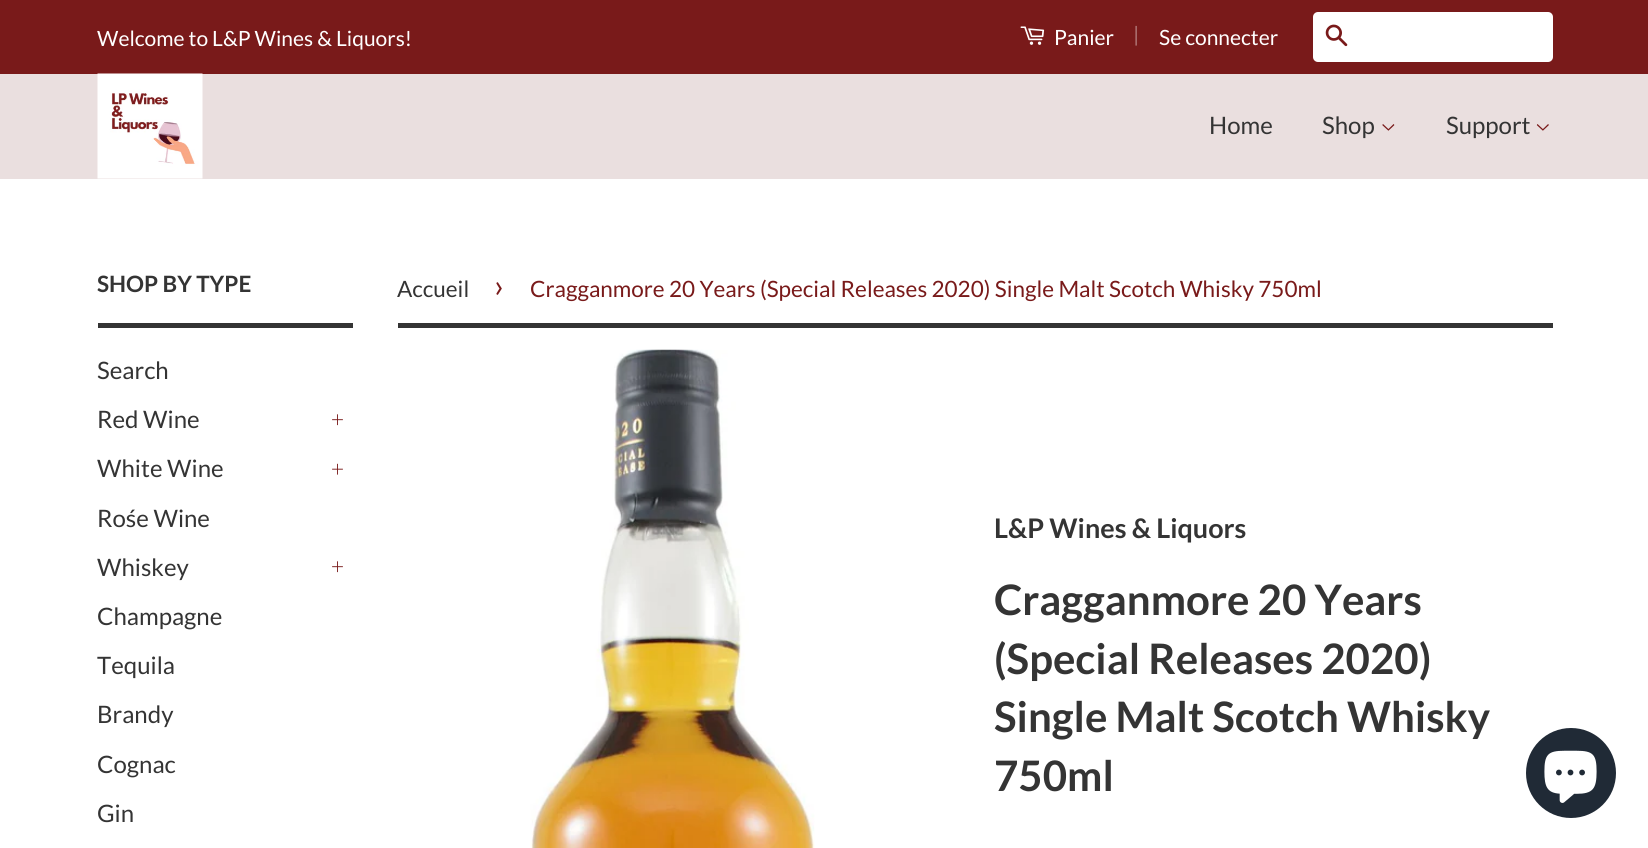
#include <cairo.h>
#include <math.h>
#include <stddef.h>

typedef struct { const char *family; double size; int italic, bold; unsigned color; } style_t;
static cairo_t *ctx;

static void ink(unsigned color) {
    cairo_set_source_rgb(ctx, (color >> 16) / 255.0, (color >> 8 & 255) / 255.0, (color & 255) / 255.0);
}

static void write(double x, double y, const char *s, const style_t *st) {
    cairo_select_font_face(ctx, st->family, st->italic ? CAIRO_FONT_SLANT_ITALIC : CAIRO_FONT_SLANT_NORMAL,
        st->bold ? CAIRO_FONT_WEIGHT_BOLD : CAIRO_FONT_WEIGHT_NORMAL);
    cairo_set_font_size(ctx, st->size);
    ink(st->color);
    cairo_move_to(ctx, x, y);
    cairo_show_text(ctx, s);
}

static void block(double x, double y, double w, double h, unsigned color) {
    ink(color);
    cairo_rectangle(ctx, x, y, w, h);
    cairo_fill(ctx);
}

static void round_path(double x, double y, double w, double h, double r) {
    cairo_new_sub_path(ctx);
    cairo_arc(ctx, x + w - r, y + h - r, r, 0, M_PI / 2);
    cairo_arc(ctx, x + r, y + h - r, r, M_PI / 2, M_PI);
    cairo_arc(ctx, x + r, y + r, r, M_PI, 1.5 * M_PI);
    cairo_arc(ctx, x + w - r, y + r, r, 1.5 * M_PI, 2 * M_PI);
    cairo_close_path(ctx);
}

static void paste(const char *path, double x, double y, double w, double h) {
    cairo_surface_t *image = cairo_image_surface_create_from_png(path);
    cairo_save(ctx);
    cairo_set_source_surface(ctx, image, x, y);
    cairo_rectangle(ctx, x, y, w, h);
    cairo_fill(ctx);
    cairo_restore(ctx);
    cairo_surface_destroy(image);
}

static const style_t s1 = {"Lato", 21, 0, 0, 0xffffff};
static const style_t s2 = {"Lato", 21, 0, 0, 0xaf7676};
static const style_t s3 = {"Lato", 24, 0, 0, 0x343434};
static const style_t s4 = {"Lato", 22.5, 0, 1, 0x343434};
static const style_t s5 = {"Lato", 22.5, 0, 0, 0x343434};
static const style_t s6 = {"Lato", 32, 0, 0, 0x791a1a};
static const style_t s7 = {"Lato", 22.5, 0, 0, 0x791a1a};
static const style_t s8 = {"Lato", 27, 0, 1, 0x343434};
static const style_t s9 = {"Lato", 42, 0, 1, 0x343434};

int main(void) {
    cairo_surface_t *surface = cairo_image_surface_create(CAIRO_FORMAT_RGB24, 1648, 848);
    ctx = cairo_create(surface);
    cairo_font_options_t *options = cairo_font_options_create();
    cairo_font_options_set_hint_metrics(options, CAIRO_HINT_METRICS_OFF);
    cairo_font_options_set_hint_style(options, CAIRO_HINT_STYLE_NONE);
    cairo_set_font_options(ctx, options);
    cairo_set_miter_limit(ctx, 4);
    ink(0xffffff);
    cairo_paint(ctx);
    block(0, 0, 1648, 74, 0x791a1a);
    write(97, 46, "Welcome to L&P Wines & Liquors!", &s1);
    paste("pic1.png", 1020, 26, 25, 19);
    write(1054, 45, "Panier", &s1);
    write(1133, 42, "|", &s2);
    write(1159, 45, "Se connecter", &s1);
    round_path(1313, 12, 240, 50, 5);
    cairo_fill(ctx);
    paste("pic2.png", 1325, 24, 23, 23);
    block(0, 74, 1648, 105, 0xeadfdf);
    paste("pic3.png", 97, 73, 106, 106);
    write(1209, 134, "Home", &s3);
    write(1322, 134, "Shop", &s3);
    paste("pic4.png", 1382, 124, 13, 7);
    write(1446, 134, "Support", &s3);
    paste("pic5.png", 1536, 124, 13, 7);
    block(98, 323, 255, 5, 0x343434);
    write(97, 292, "SHOP BY TYPE", &s4);
    write(97, 379, "Search", &s3);
    write(97, 428, "Red Wine", &s3);
    paste("pic6.png", 332, 414, 11, 12);
    write(97, 477, "White Wine", &s3);
    paste("pic7.png", 332, 463, 11, 12);
    write(97, 527, "Rośe Wine", &s3);
    write(97, 576, "Whiskey", &s3);
    paste("pic6.png", 332, 561, 11, 12);
    write(97, 625, "Champagne", &s3);
    write(97, 674, "Tequila", &s3);
    write(97, 723, "Brandy", &s3);
    write(97, 773, "Cognac", &s3);
    write(97, 822, "Gin", &s3);
    block(398, 323, 1155, 5, 0x343434);
    write(397, 297, "Accueil", &s5);
    write(494, 297, "›", &s6);
    write(530, 297, "Cragganmore 20 Years (Special Releases 2020) Single Malt Scotch Whisky 750ml", &s7);
    paste("pic8.png", 530, 349, 285, 499);
    write(994, 538, "L&P Wines & Liquors", &s8);
    write(994, 615, "Cragganmore 20 Years", &s9);
    write(994, 674, "(Special Releases 2020)", &s9);
    write(994, 732, "Single Malt Scotch Whisky", &s9);
    write(994, 791, "750ml", &s9);
    ink(0x202a36);
    cairo_new_path(ctx);
    cairo_arc(ctx, 1571, 773, 45, 0, 2 * M_PI);
    cairo_fill(ctx);
    paste("pic9.png", 1544, 750, 53, 53);
    cairo_surface_write_to_png(surface, "screenshot.png");
    cairo_font_options_destroy(options);
    cairo_destroy(ctx);
    cairo_surface_destroy(surface);
    return 0;
}
